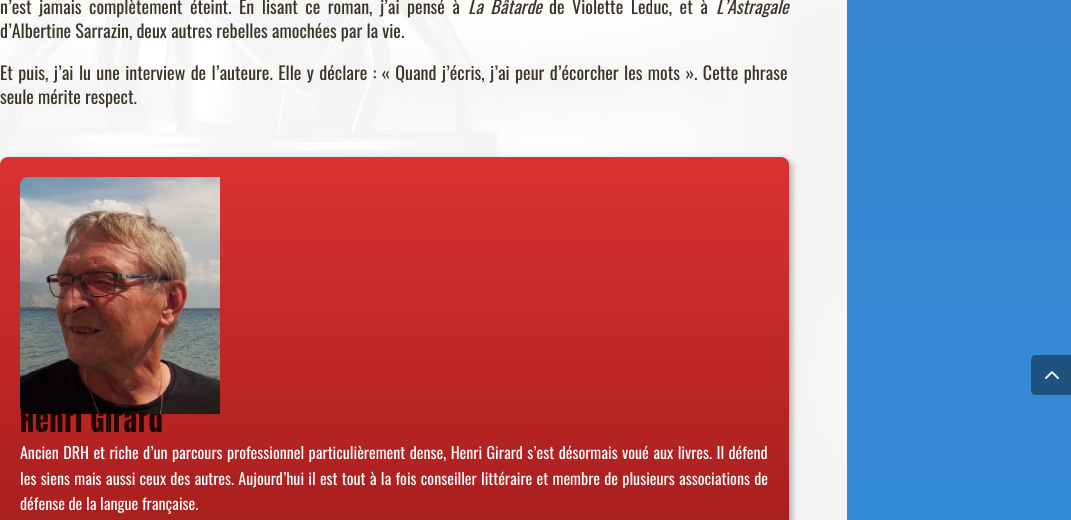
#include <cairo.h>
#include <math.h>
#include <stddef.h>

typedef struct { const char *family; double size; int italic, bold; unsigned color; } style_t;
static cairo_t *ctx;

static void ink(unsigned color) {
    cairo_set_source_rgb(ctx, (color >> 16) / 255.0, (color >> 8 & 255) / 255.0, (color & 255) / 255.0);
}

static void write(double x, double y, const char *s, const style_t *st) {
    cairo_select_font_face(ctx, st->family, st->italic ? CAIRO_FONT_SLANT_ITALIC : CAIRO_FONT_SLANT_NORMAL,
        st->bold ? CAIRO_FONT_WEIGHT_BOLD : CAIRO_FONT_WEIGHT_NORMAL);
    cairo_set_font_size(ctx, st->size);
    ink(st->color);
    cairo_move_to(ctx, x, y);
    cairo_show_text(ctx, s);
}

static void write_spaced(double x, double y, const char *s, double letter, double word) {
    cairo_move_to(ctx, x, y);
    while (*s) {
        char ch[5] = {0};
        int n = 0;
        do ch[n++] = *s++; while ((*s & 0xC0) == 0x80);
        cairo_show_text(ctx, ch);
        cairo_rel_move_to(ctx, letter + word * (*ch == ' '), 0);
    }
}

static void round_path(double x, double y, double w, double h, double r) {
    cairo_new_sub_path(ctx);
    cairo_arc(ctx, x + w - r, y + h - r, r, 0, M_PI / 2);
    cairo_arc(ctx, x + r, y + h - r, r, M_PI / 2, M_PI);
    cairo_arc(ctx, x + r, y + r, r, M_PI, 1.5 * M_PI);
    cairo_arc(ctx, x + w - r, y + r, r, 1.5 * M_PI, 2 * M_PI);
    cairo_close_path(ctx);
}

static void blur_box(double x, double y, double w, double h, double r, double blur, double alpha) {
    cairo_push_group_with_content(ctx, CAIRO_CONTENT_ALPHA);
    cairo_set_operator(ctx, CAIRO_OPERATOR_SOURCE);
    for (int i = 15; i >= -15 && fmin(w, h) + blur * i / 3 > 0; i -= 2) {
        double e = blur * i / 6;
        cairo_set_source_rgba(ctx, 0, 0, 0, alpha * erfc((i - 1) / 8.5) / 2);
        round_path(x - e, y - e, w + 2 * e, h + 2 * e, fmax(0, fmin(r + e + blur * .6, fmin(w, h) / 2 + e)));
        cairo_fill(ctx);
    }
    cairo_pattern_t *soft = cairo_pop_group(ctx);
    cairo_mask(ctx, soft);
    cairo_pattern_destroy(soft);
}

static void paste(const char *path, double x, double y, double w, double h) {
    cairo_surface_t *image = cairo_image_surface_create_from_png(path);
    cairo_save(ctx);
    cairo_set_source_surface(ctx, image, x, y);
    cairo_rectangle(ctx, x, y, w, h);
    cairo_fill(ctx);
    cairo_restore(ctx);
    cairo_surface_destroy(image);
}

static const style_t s1 = {"Oswald", 18, 1, 0, 0x3a3326};
static const style_t s2 = {"Oswald", 18, 0, 0, 0x3a3326};
static const style_t s3 = {"Oswald", 16, 0, 0, 0xffffff};

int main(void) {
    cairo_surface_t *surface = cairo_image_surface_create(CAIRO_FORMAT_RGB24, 1071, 520);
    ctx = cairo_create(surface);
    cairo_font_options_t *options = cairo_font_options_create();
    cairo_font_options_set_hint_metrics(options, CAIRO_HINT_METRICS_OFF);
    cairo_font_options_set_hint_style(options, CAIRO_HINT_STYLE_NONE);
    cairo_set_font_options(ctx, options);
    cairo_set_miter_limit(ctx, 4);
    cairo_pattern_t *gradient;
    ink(0xffffff);
    cairo_paint(ctx);
    paste("pic1.png", 0, 0, 847, 520);
    cairo_select_font_face(ctx, "Oswald", CAIRO_FONT_SLANT_NORMAL, CAIRO_FONT_WEIGHT_NORMAL);
    cairo_set_font_size(ctx, 18);
    ink(0x3a3326);
    write_spaced(0, 14, "n’est jamais complètement éteint. En lisant ce roman, j’ai pensé à", 0, 3.4);
    cairo_select_font_face(ctx, "Oswald", CAIRO_FONT_SLANT_ITALIC, CAIRO_FONT_WEIGHT_NORMAL);
    write_spaced(468, 14, "La Bâtarde", 0, 3.4);
    cairo_select_font_face(ctx, "Oswald", CAIRO_FONT_SLANT_NORMAL, CAIRO_FONT_WEIGHT_NORMAL);
    write_spaced(549, 14, "de Violette Leduc, et à", 0, 3.4);
    write(716, 14, "L’Astragale", &s1);
    write(0, 38, "d’Albertine Sarrazin, deux autres rebelles amochées par la vie.", &s2);
    write_spaced(0, 80, "Et puis, j’ai lu une interview de l’auteure. Elle y déclare : « Quand j’écris, j’ai peur d’écorcher les mots ». Cette phrase", 0, 1.3);
    write(0, 104, "seule mérite respect.", &s2);
    ink(0x000000);
    blur_box(3, 160, 789, 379, 8, 3.5, 0.3);
    gradient = cairo_pattern_create_linear(395, 157, 395, 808);
    cairo_pattern_add_color_stop_rgba(gradient, 0, 0.859, 0.196, 0.196, 1);
    cairo_pattern_add_color_stop_rgba(gradient, 1, 0.51, 0.059, 0.059, 1);
    cairo_set_source(ctx, gradient);
    cairo_pattern_destroy(gradient);
    round_path(0, 157, 789, 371, 8);
    cairo_fill(ctx);
    cairo_select_font_face(ctx, "Anton", CAIRO_FONT_SLANT_NORMAL, CAIRO_FONT_WEIGHT_NORMAL);
    cairo_set_font_size(ctx, 28);
    ink(0x210700);
    write_spaced(20, 432, "Henri Girard", 1, 0);
    paste("pic2.png", 20, 177, 200, 237);
    cairo_select_font_face(ctx, "Oswald", CAIRO_FONT_SLANT_NORMAL, CAIRO_FONT_WEIGHT_NORMAL);
    cairo_set_font_size(ctx, 16);
    ink(0xffffff);
    write_spaced(20, 459, "Ancien DRH et riche d’un parcours professionnel particulièrement dense, Henri Girard s’est désormais voué aux livres. Il défend", 0, 0.75);
    write_spaced(20, 485, "les siens mais aussi ceux des autres. Aujourd’hui il est tout à la fois conseiller littéraire et membre de plusieurs associations de", 0, 0.6);
    write(20, 510, "défense de la langue française.", &s3);
    gradient = cairo_pattern_create_linear(959, -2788, 959, 520);
    cairo_pattern_add_color_stop_rgba(gradient, 0, 0.224, 0.384, 0.694, 1);
    cairo_pattern_add_color_stop_rgba(gradient, 1, 0.212, 0.545, 0.839, 1);
    cairo_set_source(ctx, gradient);
    cairo_pattern_destroy(gradient);
    cairo_rectangle(ctx, 847, 0, 224, 520);
    cairo_fill(ctx);
    ink(0x20527f);
    cairo_new_path(ctx);
    cairo_move_to(ctx, 1036, 355);
    cairo_line_to(ctx, 1071, 355);
    cairo_line_to(ctx, 1071, 395);
    cairo_line_to(ctx, 1036, 395);
    cairo_curve_to(ctx, 1033, 395, 1031, 393, 1031, 390);
    cairo_line_to(ctx, 1031, 360);
    cairo_curve_to(ctx, 1031, 357, 1033, 355, 1036, 355);
    cairo_close_path(ctx);
    cairo_fill(ctx);
    paste("pic3.png", 1044, 371, 15, 9);
    cairo_surface_write_to_png(surface, "screenshot.png");
    cairo_font_options_destroy(options);
    cairo_destroy(ctx);
    cairo_surface_destroy(surface);
    return 0;
}
